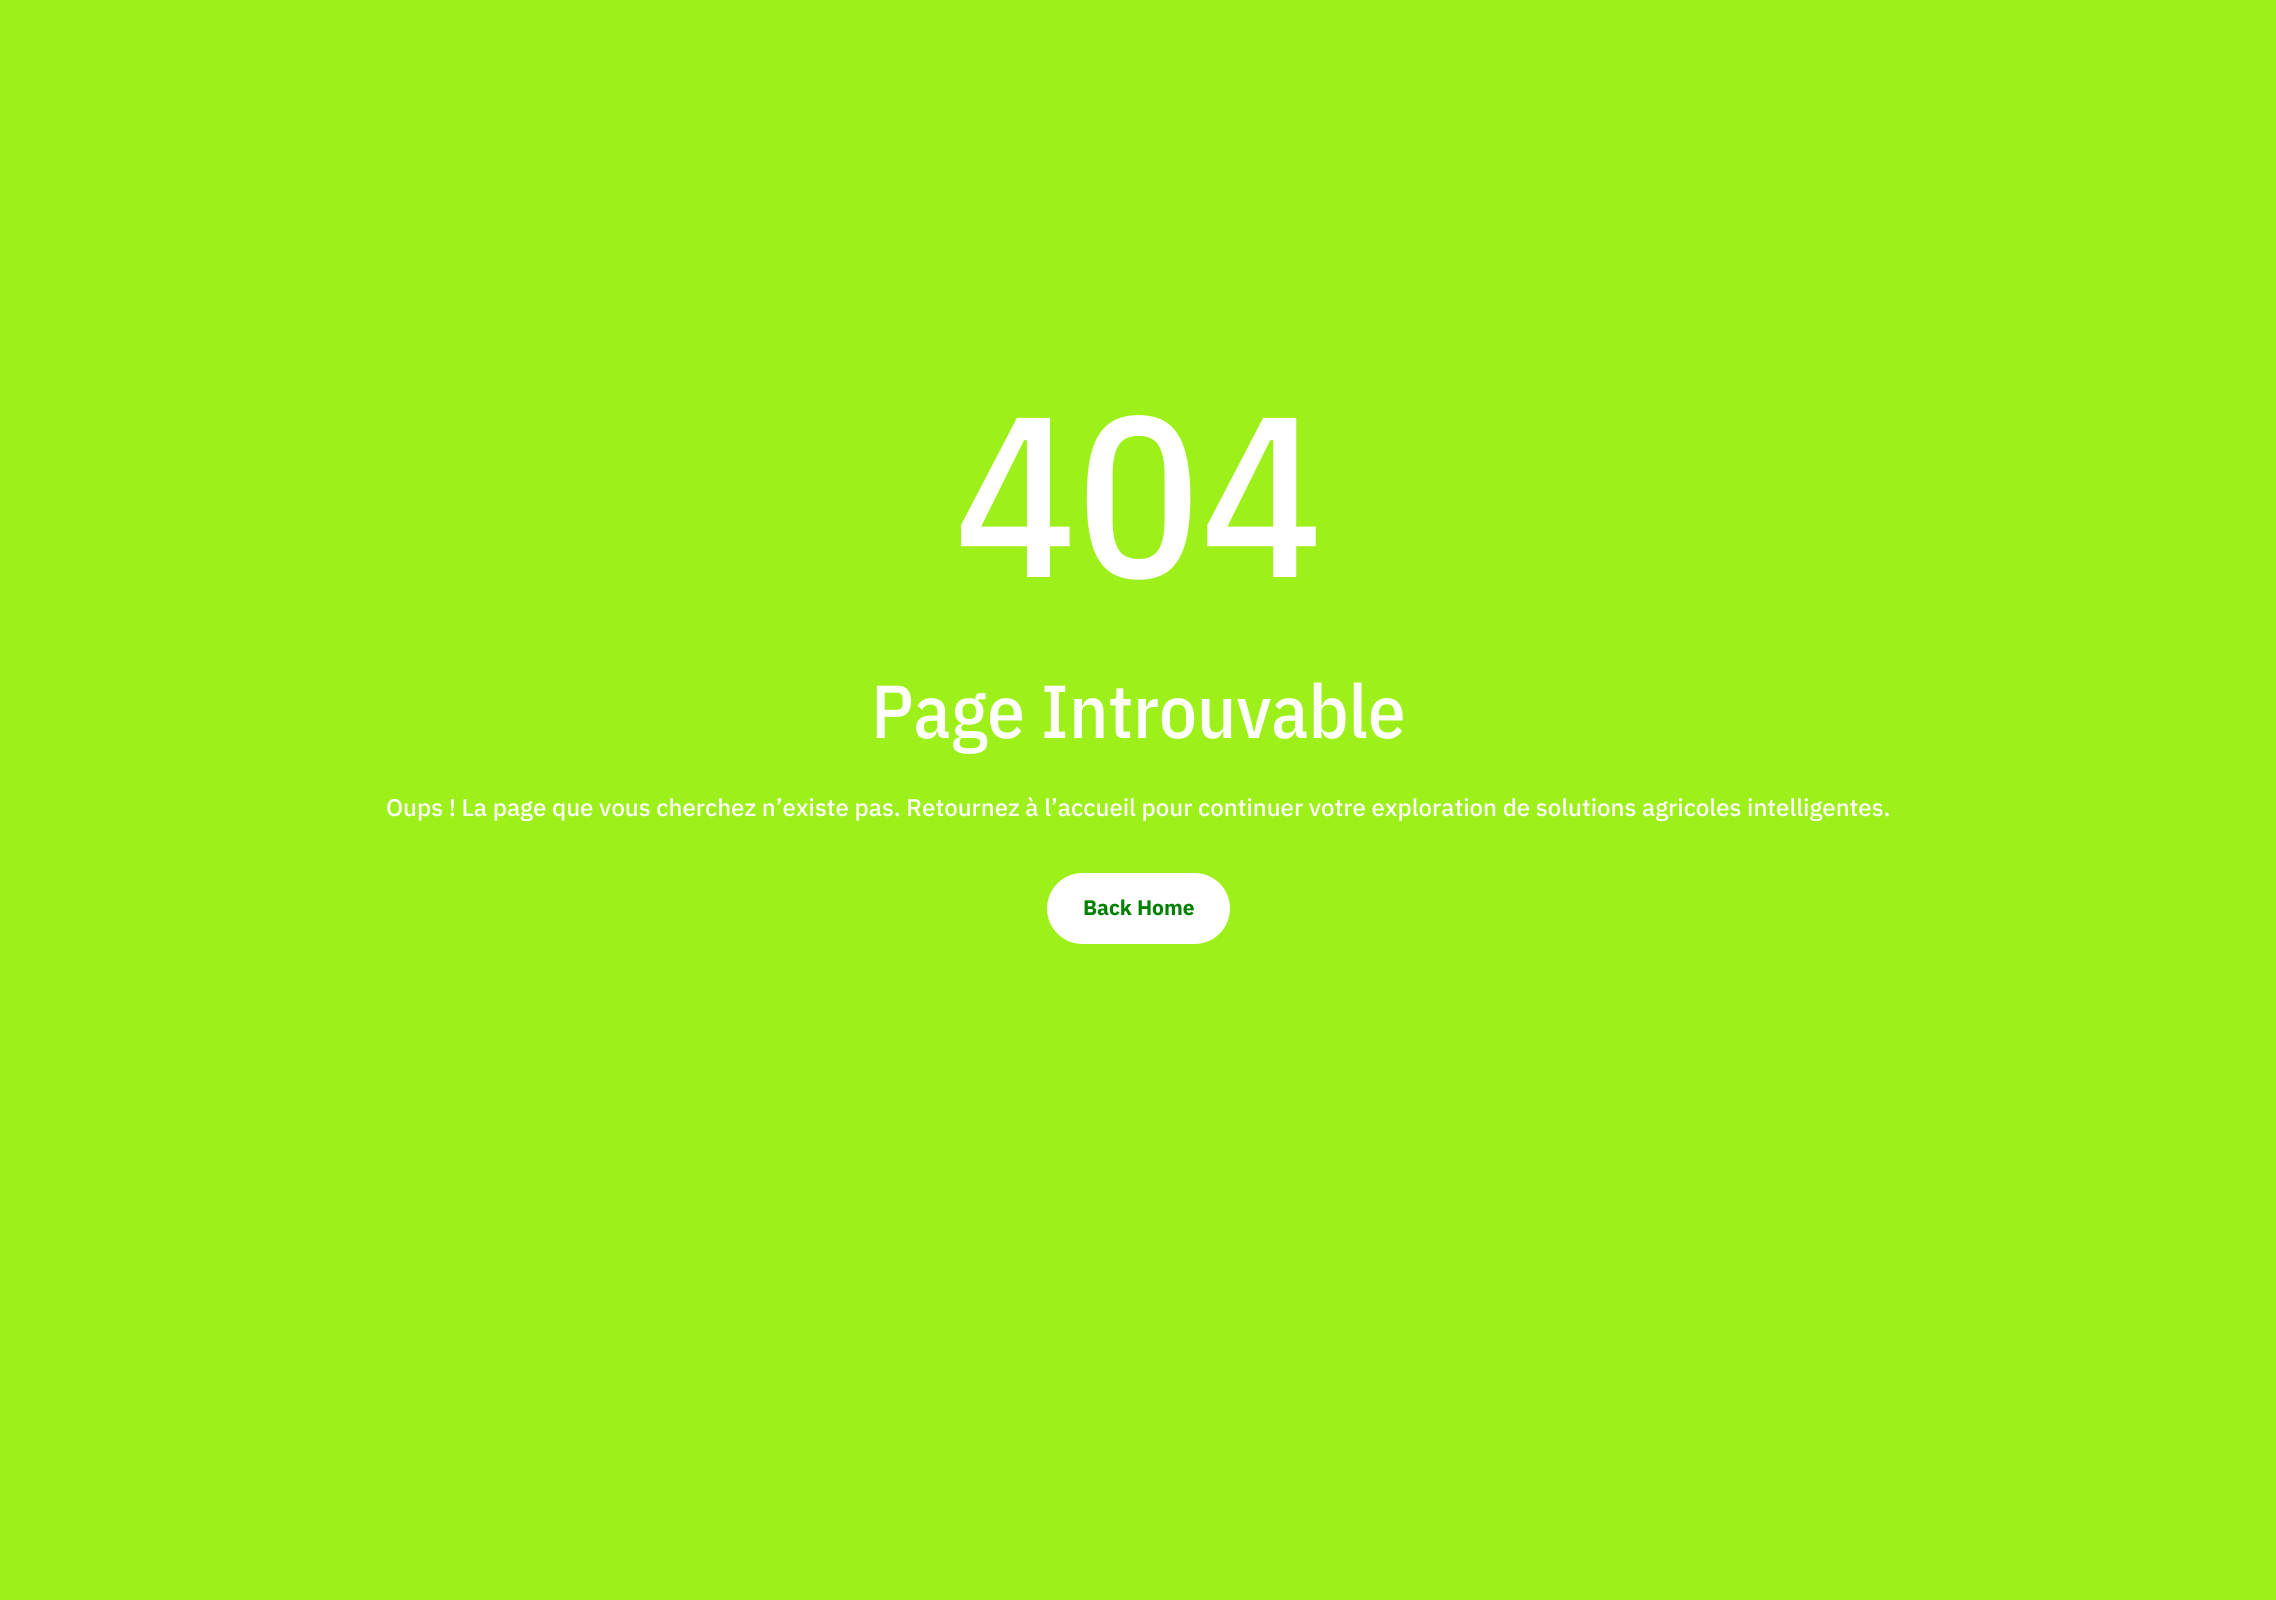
#include <cairo.h>
#include <math.h>
#include <stddef.h>

typedef struct { const char *family; double size; int italic, bold; unsigned color; } style_t;
static cairo_t *ctx;

static void ink(unsigned color) {
    cairo_set_source_rgb(ctx, (color >> 16) / 255.0, (color >> 8 & 255) / 255.0, (color & 255) / 255.0);
}

static void write(double x, double y, const char *s, const style_t *st) {
    cairo_select_font_face(ctx, st->family, st->italic ? CAIRO_FONT_SLANT_ITALIC : CAIRO_FONT_SLANT_NORMAL,
        st->bold ? CAIRO_FONT_WEIGHT_BOLD : CAIRO_FONT_WEIGHT_NORMAL);
    cairo_set_font_size(ctx, st->size);
    ink(st->color);
    cairo_move_to(ctx, x, y);
    cairo_show_text(ctx, s);
}

static void round_path(double x, double y, double w, double h, double r) {
    cairo_new_sub_path(ctx);
    cairo_arc(ctx, x + w - r, y + h - r, r, 0, M_PI / 2);
    cairo_arc(ctx, x + r, y + h - r, r, M_PI / 2, M_PI);
    cairo_arc(ctx, x + r, y + r, r, M_PI, 1.5 * M_PI);
    cairo_arc(ctx, x + w - r, y + r, r, 1.5 * M_PI, 2 * M_PI);
    cairo_close_path(ctx);
}

static const style_t s1 = {"IBM Plex Sans Condensed Medium", 228, 0, 0, 0xffffff};
static const style_t s2 = {"IBM Plex Sans Condensed Medium", 75, 0, 0, 0xffffff};
static const style_t s3 = {"IBM Plex Sans Medium", 24, 0, 0, 0xffffff};
static const style_t s4 = {"IBM Plex Sans", 21, 0, 1, 0x008000};

int main(void) {
    cairo_surface_t *surface = cairo_image_surface_create(CAIRO_FORMAT_RGB24, 2276, 1600);
    ctx = cairo_create(surface);
    cairo_font_options_t *options = cairo_font_options_create();
    cairo_font_options_set_hint_metrics(options, CAIRO_HINT_METRICS_OFF);
    cairo_font_options_set_hint_style(options, CAIRO_HINT_STYLE_NONE);
    cairo_set_font_options(ctx, options);
    cairo_set_miter_limit(ctx, 4);
    ink(0x9ef01a);
    cairo_paint(ctx);
    write(954, 577, "404", &s1);
    write(871, 738, "Page Introuvable", &s2);
    write(386, 816, "Oups ! La page que vous cherchez n’existe pas. Retournez à l’accueil pour continuer votre exploration de solutions agricoles intelligentes.", &s3);
    round_path(1047, 873, 183, 71, 35.5);
    cairo_fill(ctx);
    write(1083, 915, "Back Home", &s4);
    cairo_surface_write_to_png(surface, "screenshot.png");
    cairo_font_options_destroy(options);
    cairo_destroy(ctx);
    cairo_surface_destroy(surface);
    return 0;
}
